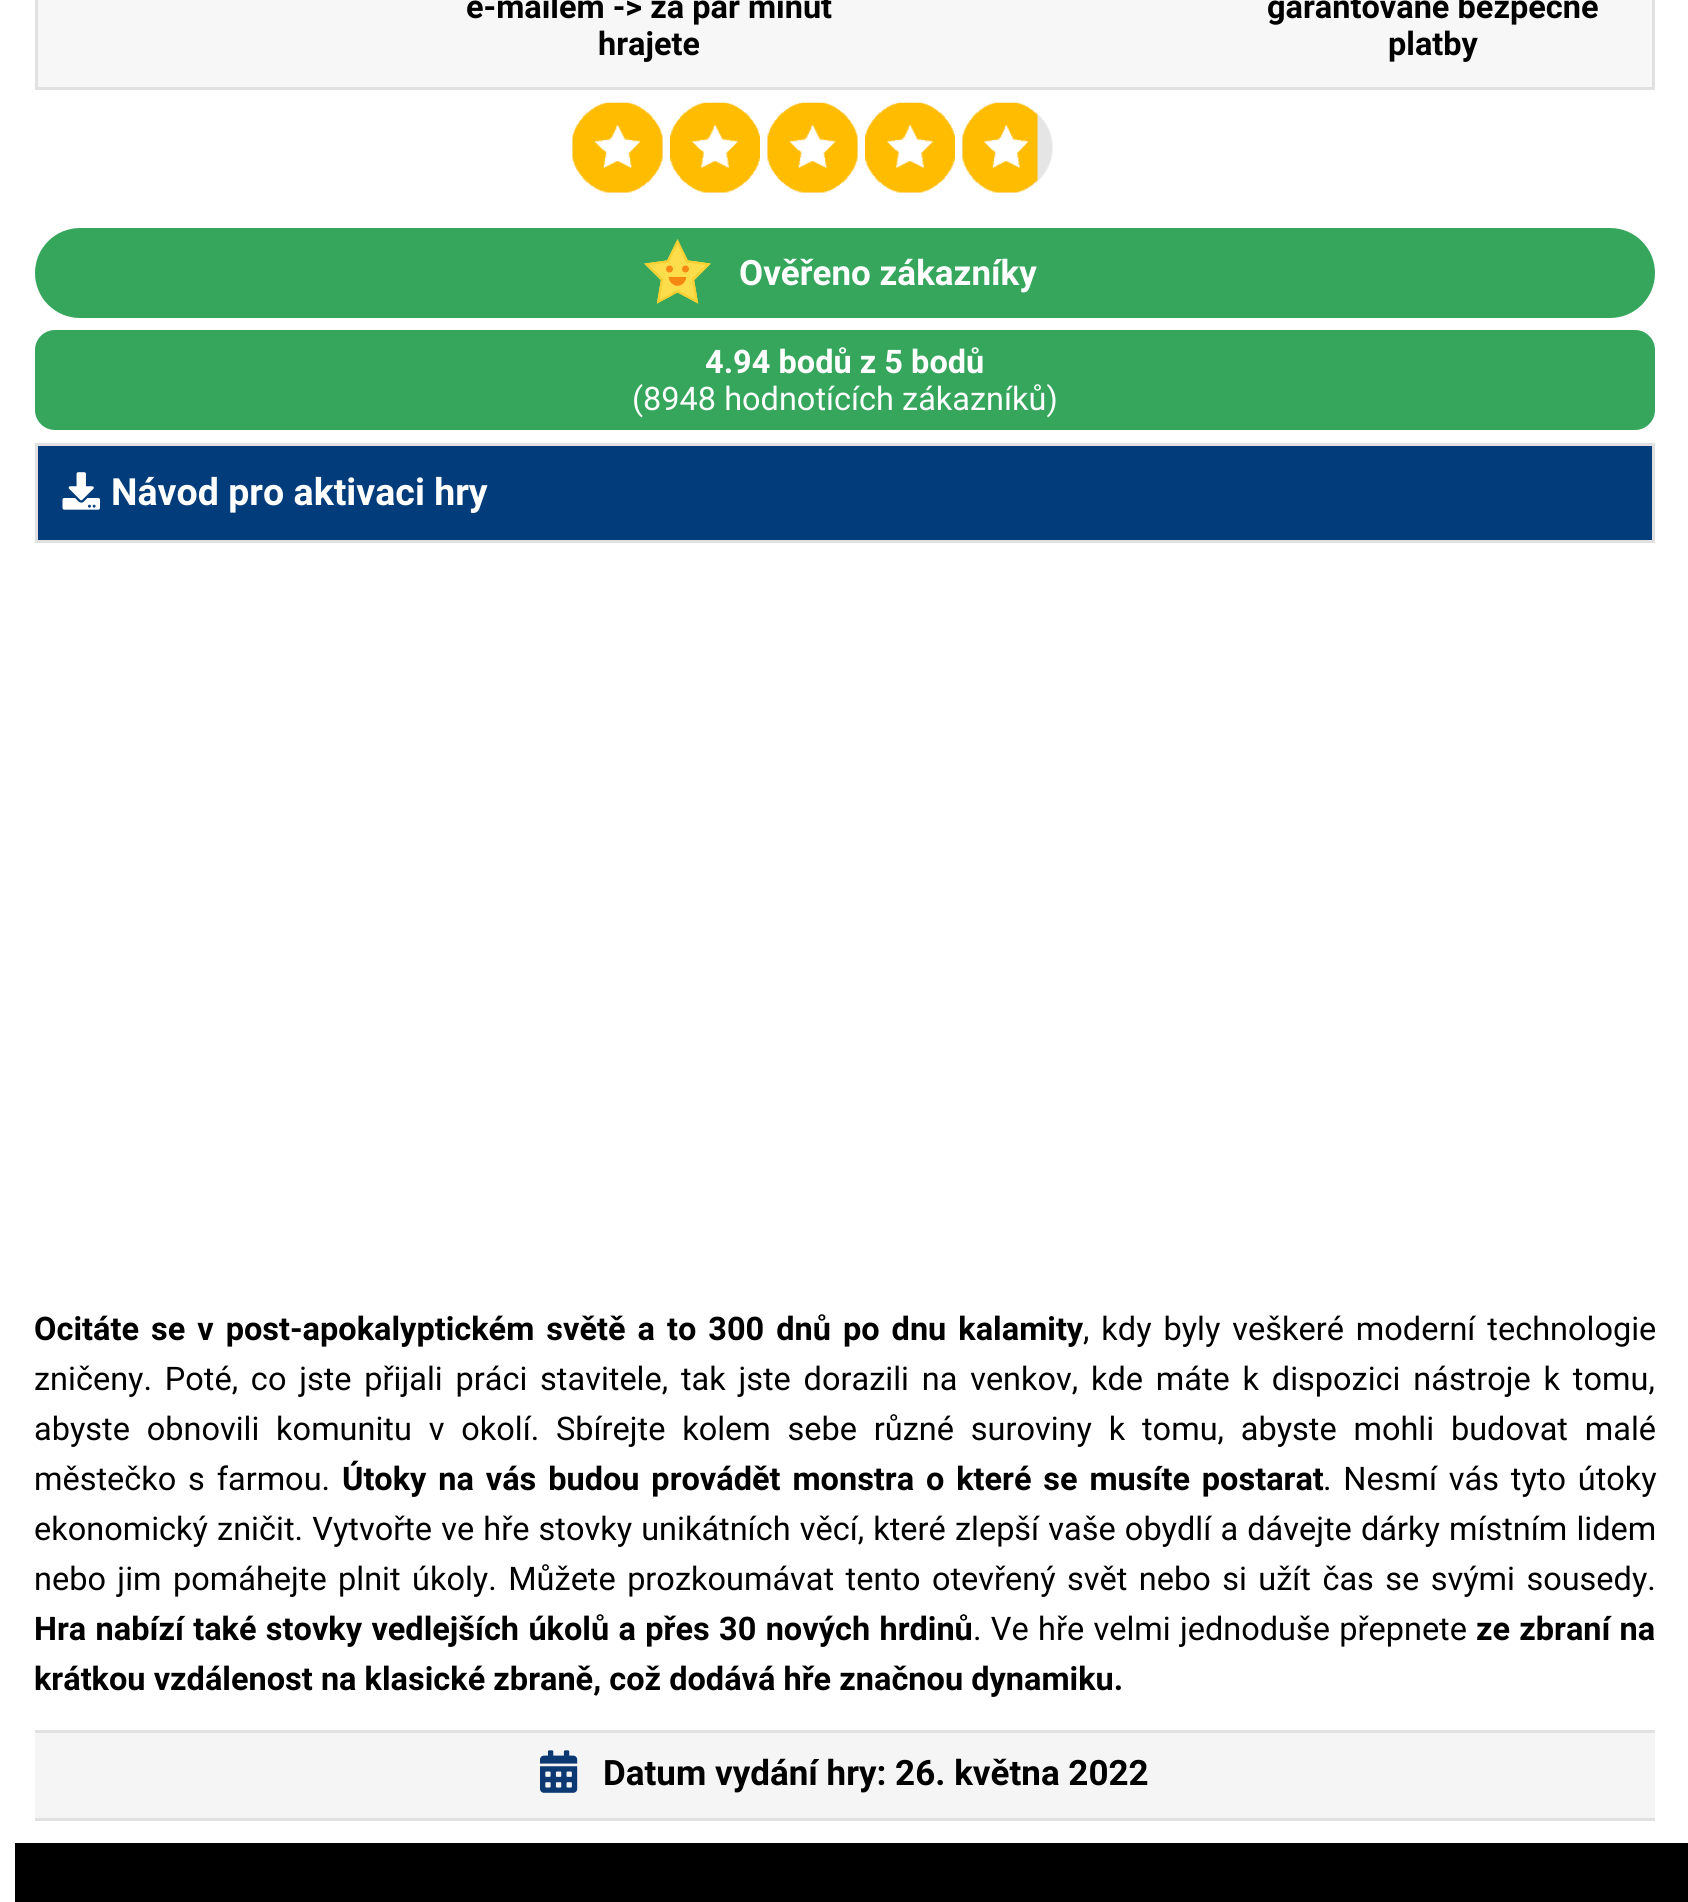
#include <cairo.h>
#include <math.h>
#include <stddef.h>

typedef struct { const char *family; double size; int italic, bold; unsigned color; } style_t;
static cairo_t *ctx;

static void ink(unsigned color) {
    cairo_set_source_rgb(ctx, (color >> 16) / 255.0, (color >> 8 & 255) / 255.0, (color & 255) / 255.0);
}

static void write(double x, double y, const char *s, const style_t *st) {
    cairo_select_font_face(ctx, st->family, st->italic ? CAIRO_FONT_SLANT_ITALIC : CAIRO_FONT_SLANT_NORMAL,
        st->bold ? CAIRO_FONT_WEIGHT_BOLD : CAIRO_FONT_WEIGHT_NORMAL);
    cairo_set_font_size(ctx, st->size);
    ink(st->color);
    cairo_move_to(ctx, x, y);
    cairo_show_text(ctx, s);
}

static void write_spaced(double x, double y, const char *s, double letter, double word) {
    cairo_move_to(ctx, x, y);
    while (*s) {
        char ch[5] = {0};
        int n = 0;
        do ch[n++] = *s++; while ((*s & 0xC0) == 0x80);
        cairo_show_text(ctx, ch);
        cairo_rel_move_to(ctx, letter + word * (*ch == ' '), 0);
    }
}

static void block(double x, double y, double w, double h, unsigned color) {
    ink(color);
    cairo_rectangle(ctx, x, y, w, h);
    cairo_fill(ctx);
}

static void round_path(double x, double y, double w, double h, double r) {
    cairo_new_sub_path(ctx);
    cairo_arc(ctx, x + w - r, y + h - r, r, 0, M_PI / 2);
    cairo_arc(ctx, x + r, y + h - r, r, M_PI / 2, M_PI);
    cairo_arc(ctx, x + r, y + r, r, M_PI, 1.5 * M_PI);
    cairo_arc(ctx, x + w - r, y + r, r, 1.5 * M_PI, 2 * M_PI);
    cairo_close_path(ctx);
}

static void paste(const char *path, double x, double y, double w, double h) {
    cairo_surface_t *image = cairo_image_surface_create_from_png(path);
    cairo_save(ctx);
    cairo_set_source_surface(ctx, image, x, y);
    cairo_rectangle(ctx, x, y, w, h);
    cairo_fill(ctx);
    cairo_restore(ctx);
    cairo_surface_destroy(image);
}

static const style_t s1 = {"Roboto", 32.5, 0, 1, 0x000000};
static const style_t s2 = {"Roboto", 35, 0, 1, 0xffffff};
static const style_t s3 = {"Roboto", 32.5, 0, 1, 0xffffff};
static const style_t s4 = {"Roboto", 32.5, 0, 0, 0xffffff};
static const style_t s5 = {"Roboto", 37.5, 0, 1, 0xffffff};
static const style_t s6 = {"Roboto", 35, 0, 1, 0x000000};

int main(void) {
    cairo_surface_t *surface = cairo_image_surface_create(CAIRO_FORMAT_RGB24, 1688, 1902);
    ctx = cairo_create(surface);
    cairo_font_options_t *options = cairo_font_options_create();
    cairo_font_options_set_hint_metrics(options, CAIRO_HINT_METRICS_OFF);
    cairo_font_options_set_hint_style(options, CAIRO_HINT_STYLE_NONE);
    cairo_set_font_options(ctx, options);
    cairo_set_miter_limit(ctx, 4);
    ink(0xffffff);
    cairo_paint(ctx);
    ink(0xf7f7f7);
    cairo_rectangle(ctx, 36.5, -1.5, 1617, 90);
    cairo_fill_preserve(ctx);
    ink(0xe1e1e1);
    cairo_set_line_width(ctx, 3);
    cairo_stroke(ctx);
    write(466, 18, "e-mailem -> za pár minut", &s1);
    write(598, 55, "hrajete", &s1);
    write(1267, 18, "garantované bezpečné", &s1);
    write(1388, 55, "platby", &s1);
    paste("pic1.png", 572, 102, 91, 91);
    paste("pic2.png", 572, 102, 91, 91);
    paste("pic3.png", 670, 102, 90, 91);
    paste("pic4.png", 670, 102, 90, 91);
    paste("pic5.png", 767, 102, 91, 91);
    paste("pic6.png", 767, 102, 91, 91);
    paste("pic7.png", 865, 102, 90, 91);
    paste("pic8.png", 865, 102, 90, 91);
    paste("pic9.png", 962, 102, 91, 91);
    paste("pic10.png", 962, 102, 76, 91);
    ink(0x35a65b);
    round_path(35, 228, 1620, 90, 45);
    cairo_fill(ctx);
    paste("pic11.png", 644, 239, 67, 65);
    write(739, 285, "Ověřeno zákazníky", &s2);
    ink(0x35a65b);
    round_path(35, 330, 1620, 100, 20);
    cairo_fill(ctx);
    write(705, 373, "4.94 bodů z 5 bodů", &s3);
    write(632, 410, "(8948 hodnotících zákazníků)", &s4);
    ink(0x033c7a);
    cairo_rectangle(ctx, 36.5, 444.5, 1617, 97);
    cairo_fill_preserve(ctx);
    ink(0xe1e1e1);
    cairo_stroke(ctx);
    paste("pic12.png", 62, 472, 38, 38);
    write(111, 505, "Návod pro aktivaci hry", &s5);
    cairo_set_font_size(ctx, 32.5);
    ink(0x000000);
    write_spaced(34, 1340, "Ocitáte se v post-apokalyptickém světě a to 300 dnů po dnu kalamity", 0, 3.9);
    cairo_select_font_face(ctx, "Roboto", CAIRO_FONT_SLANT_NORMAL, CAIRO_FONT_WEIGHT_NORMAL);
    write_spaced(1083, 1340, ", kdy byly veškeré moderní technologie", 0, 3.9);
    write_spaced(34, 1390, "zničeny. Poté, co jste přijali práci stavitele, tak jste dorazili na venkov, kde máte k dispozici nástroje k tomu,", 0, 4.75);
    write_spaced(34, 1440, "abyste obnovili komunitu v okolí. Sbírejte kolem sebe různé suroviny k tomu, abyste mohli budovat malé", 0, 8.75);
    write_spaced(34, 1490, "městečko s farmou.", 0, 3.75);
    cairo_select_font_face(ctx, "Roboto", CAIRO_FONT_SLANT_NORMAL, CAIRO_FONT_WEIGHT_BOLD);
    write_spaced(342, 1490, "Útoky na vás budou provádět monstra o které se musíte postarat", 0, 3.75);
    cairo_select_font_face(ctx, "Roboto", CAIRO_FONT_SLANT_NORMAL, CAIRO_FONT_WEIGHT_NORMAL);
    write_spaced(1323, 1490, ". Nesmí vás tyto útoky", 0, 3.75);
    write_spaced(34, 1540, "ekonomický zničit. Vytvořte ve hře stovky unikátních věcí, které zlepší vaše obydlí a dávejte dárky místním lidem", 0, 1.1);
    write_spaced(34, 1590, "nebo jim pomáhejte plnit úkoly. Můžete prozkoumávat tento otevřený svět nebo si užít čas se svými sousedy.", 0, 3.4);
    cairo_select_font_face(ctx, "Roboto", CAIRO_FONT_SLANT_NORMAL, CAIRO_FONT_WEIGHT_BOLD);
    write_spaced(34, 1640, "Hra nabízí také stovky vedlejších úkolů a přes 30 nových hrdinů", 0, 1.25);
    cairo_select_font_face(ctx, "Roboto", CAIRO_FONT_SLANT_NORMAL, CAIRO_FONT_WEIGHT_NORMAL);
    write_spaced(973, 1640, ". Ve hře velmi jednoduše přepnete", 0, 1.25);
    cairo_select_font_face(ctx, "Roboto", CAIRO_FONT_SLANT_NORMAL, CAIRO_FONT_WEIGHT_BOLD);
    write_spaced(1476, 1640, "ze zbraní na", 0, 1);
    write(34, 1690, "krátkou vzdálenost na klasické zbraně, což dodává hře značnou dynamiku.", &s1);
    block(35, 1733, 1620, 85, 0xf5f5f5);
    block(35, 1730, 1620, 3, 0xe1e1e1);
    block(35, 1818, 1620, 3, 0xe1e1e1);
    paste("pic13.png", 540, 1750, 38, 43);
    write(603, 1785, "Datum vydání hry: 26. května 2022", &s6);
    block(15, 1843, 1673, 59, 0x000000);
    cairo_surface_write_to_png(surface, "screenshot.png");
    cairo_font_options_destroy(options);
    cairo_destroy(ctx);
    cairo_surface_destroy(surface);
    return 0;
}
